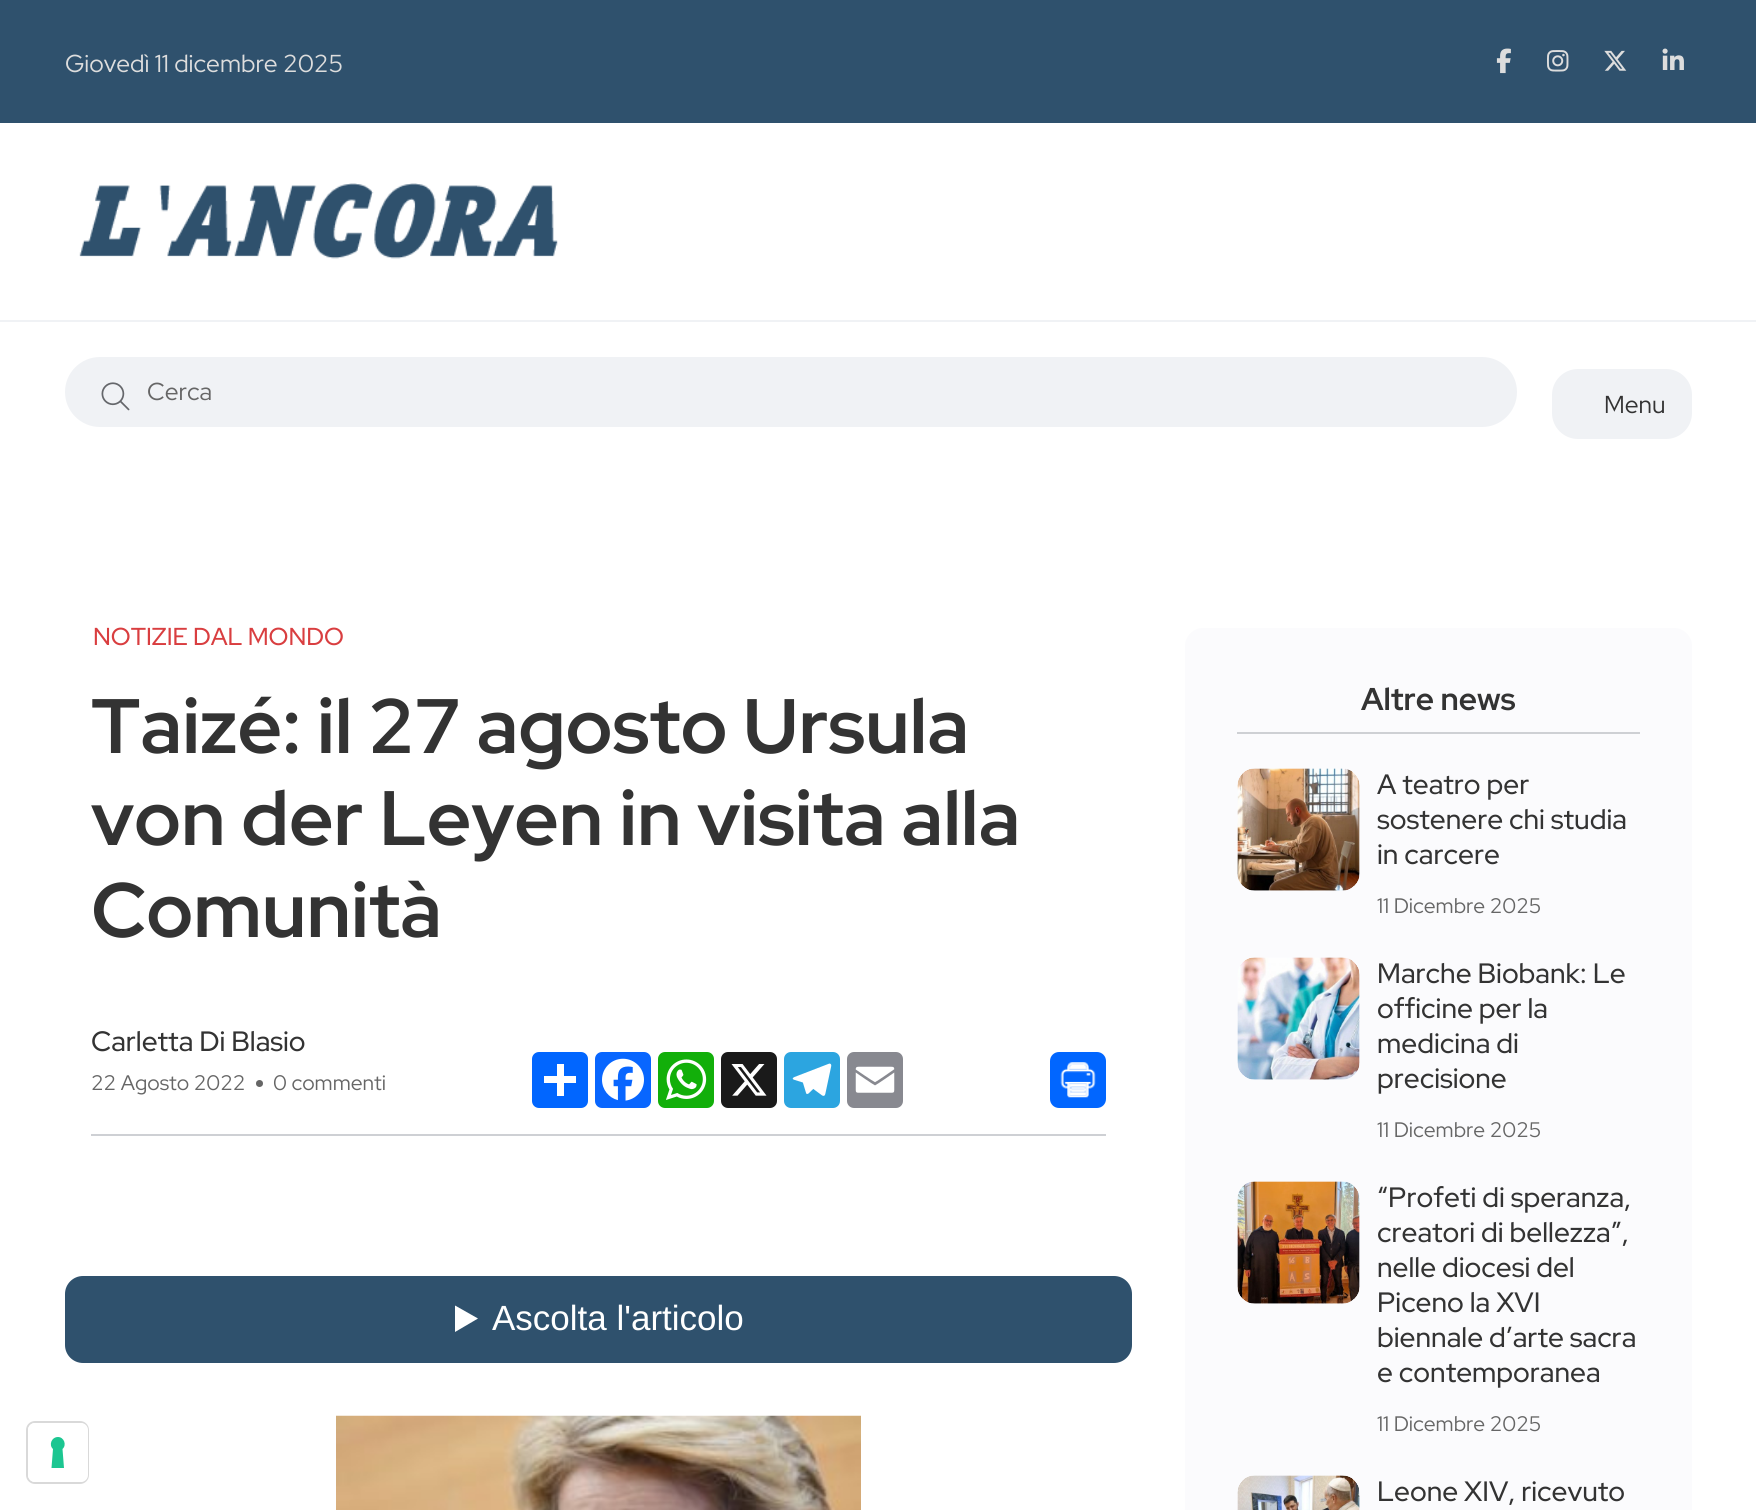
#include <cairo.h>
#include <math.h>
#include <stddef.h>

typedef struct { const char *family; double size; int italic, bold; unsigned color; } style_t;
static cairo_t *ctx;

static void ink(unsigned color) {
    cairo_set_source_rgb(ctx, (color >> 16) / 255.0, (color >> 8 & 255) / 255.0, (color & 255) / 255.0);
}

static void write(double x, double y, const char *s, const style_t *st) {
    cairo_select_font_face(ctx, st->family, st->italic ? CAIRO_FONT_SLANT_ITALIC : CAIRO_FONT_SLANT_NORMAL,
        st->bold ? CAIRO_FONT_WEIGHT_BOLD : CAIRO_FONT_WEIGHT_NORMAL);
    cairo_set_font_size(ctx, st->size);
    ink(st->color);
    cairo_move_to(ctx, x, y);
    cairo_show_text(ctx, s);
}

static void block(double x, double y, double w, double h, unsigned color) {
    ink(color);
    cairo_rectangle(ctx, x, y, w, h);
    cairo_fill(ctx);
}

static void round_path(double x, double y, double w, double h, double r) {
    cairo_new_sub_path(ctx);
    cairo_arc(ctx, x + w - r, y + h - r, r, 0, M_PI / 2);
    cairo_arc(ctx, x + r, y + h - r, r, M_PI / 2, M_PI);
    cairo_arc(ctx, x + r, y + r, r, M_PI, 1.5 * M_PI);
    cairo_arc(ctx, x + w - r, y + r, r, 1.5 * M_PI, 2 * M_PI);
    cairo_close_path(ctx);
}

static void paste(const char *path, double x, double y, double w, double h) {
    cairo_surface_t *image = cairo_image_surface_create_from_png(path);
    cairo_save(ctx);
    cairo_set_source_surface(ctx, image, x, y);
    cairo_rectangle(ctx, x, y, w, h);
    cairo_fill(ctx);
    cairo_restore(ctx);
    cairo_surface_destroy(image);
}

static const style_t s1 = {"Red Hat Display", 24.5, 0, 0, 0xdddddd};
static const style_t s2 = {"Red Hat Display", 24.5, 0, 0, 0x666666};
static const style_t s3 = {"Red Hat Display", 24.5, 0, 0, 0x333333};
static const style_t s4 = {"Red Hat Display Medium", 24.5, 0, 0, 0xd93e40};
static const style_t s5 = {"Red Hat Display", 77, 0, 1, 0x333333};
static const style_t s6 = {"Red Hat Display Medium", 28, 0, 0, 0x333333};
static const style_t s7 = {"Red Hat Display", 21, 0, 0, 0x666666};
static const style_t s8 = {"Liberation Sans", 35, 0, 0, 0xffffff};
static const style_t s9 = {"Red Hat Display", 31.5, 0, 1, 0x333333};

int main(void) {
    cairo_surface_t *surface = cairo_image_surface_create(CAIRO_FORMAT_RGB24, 1756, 1510);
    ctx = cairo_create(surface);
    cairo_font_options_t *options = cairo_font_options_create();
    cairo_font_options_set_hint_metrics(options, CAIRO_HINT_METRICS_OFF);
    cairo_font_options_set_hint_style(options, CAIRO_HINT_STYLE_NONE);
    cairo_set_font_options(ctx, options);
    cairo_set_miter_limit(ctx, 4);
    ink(0xffffff);
    cairo_paint(ctx);
    round_path(27, 1422, 61, 61, 8);
    ink(0xd9d9d9);
    cairo_stroke(ctx);
    ink(0xffffff);
    round_path(28, 1423, 60, 59, 7);
    cairo_fill(ctx);
    ink(0x1cc691);
    cairo_set_fill_rule(ctx, CAIRO_FILL_RULE_EVEN_ODD);
    cairo_new_path(ctx);
    cairo_move_to(ctx, 58, 1437);
    cairo_curve_to(ctx, 64, 1437, 67, 1445, 62.5, 1449);
    cairo_line_to(ctx, 64, 1468);
    cairo_line_to(ctx, 51.5, 1468);
    cairo_line_to(ctx, 53, 1449);
    cairo_curve_to(ctx, 48.5, 1445, 51.5, 1437, 58, 1437);
    cairo_close_path(ctx);
    cairo_fill(ctx);
    block(0, 0, 1756, 123, 0x2f516d);
    write(65, 72, "Giovedì 11 dicembre 2025", &s1);
    paste("pic1.png", 1496, 48, 15, 26);
    paste("pic2.png", 1547, 50, 22, 22);
    paste("pic3.png", 1604, 50, 23, 21);
    paste("pic4.png", 1662, 48, 22, 22);
    paste("pic5.png", 79, 183, 479, 76);
    block(0, 320, 1756, 2, 0xf0f2f5);
    round_path(65, 357, 1452, 70, 35);
    cairo_fill(ctx);
    paste("pic6.png", 101, 382, 29, 29);
    write(147, 400, "Cerca", &s2);
    ink(0xf0f2f5);
    round_path(1552, 369, 140, 70, 26);
    cairo_fill(ctx);
    write(1604, 413, "Menu", &s3);
    write(93, 645, "NOTIZIE DAL MONDO", &s4);
    write(91, 753, "Taizé: il 27 agosto Ursula", &s5);
    write(91, 845, "von der Leyen in visita alla", &s5);
    write(91, 937, "Comunità", &s5);
    block(91, 1134, 1015, 2, 0xced0d4);
    write(91, 1051, "Carletta Di Blasio", &s6);
    write(91, 1090, "22 Agosto 2022", &s7);
    cairo_new_path(ctx);
    cairo_arc(ctx, 259.5, 1083.5, 3.5, 0, 2 * M_PI);
    cairo_fill(ctx);
    write(273, 1090, "0 commenti", &s7);
    ink(0x0166ff);
    round_path(532, 1052, 56, 56, 7);
    cairo_fill(ctx);
    block(557, 1064, 7, 32, 0xffffff);
    block(544, 1076, 32, 7, 0xffffff);
    ink(0x0866ff);
    round_path(595, 1052, 56, 56, 7);
    cairo_fill(ctx);
    paste("pic7.png", 602, 1058, 42, 43);
    ink(0x12af0a);
    round_path(658, 1052, 56, 56, 7);
    cairo_fill(ctx);
    paste("pic8.png", 666, 1059, 41, 41);
    ink(0x1a1a1a);
    round_path(721, 1052, 56, 56, 7);
    cairo_fill(ctx);
    paste("pic9.png", 731, 1064, 36, 32);
    ink(0x2ca5e0);
    round_path(784, 1052, 56, 56, 7);
    cairo_fill(ctx);
    paste("pic10.png", 792, 1063, 40, 33);
    ink(0x888990);
    round_path(847, 1052, 56, 56, 7);
    cairo_fill(ctx);
    paste("pic11.png", 855, 1066, 40, 27);
    ink(0x0166ff);
    round_path(1050, 1052, 56, 56, 9);
    cairo_fill(ctx);
    paste("pic12.png", 1060, 1062, 36, 36);
    ink(0x2f516d);
    round_path(65, 1276, 1067, 87, 18);
    cairo_fill(ctx);
    ink(0xffffff);
    cairo_set_fill_rule(ctx, CAIRO_FILL_RULE_WINDING);
    cairo_new_path(ctx);
    cairo_move_to(ctx, 455, 1305.5);
    cairo_line_to(ctx, 455, 1332);
    cairo_line_to(ctx, 478, 1318.5);
    cairo_close_path(ctx);
    cairo_fill(ctx);
    write(492, 1330, "Ascolta l'articolo", &s8);
    paste("pic13.png", 336, 1415, 525, 95);
    ink(0xfbfbfd);
    round_path(1185, 628, 507, 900, 18);
    cairo_fill(ctx);
    block(1237, 732, 403, 2, 0xced0d4);
    write(1361, 710, "Altre news", &s9);
    paste("pic14.png", 1237, 768, 123, 123);
    write(1377, 794, "A teatro per", &s6);
    write(1377, 829, "sostenere chi studia", &s6);
    write(1377, 864, "in carcere", &s6);
    write(1377, 913, "11 Dicembre 2025", &s7);
    paste("pic15.png", 1237, 957, 123, 123);
    write(1377, 983, "Marche Biobank: Le", &s6);
    write(1377, 1018, "officine per la", &s6);
    write(1377, 1053, "medicina di", &s6);
    write(1377, 1088, "precisione", &s6);
    write(1377, 1137, "11 Dicembre 2025", &s7);
    paste("pic16.png", 1237, 1181, 123, 123);
    write(1377, 1207, "“Profeti di speranza,", &s6);
    write(1377, 1242, "creatori di bellezza”,", &s6);
    write(1377, 1277, "nelle diocesi del", &s6);
    write(1377, 1312, "Piceno la XVI", &s6);
    write(1377, 1347, "biennale d’arte sacra", &s6);
    write(1377, 1382, "e contemporanea", &s6);
    write(1377, 1431, "11 Dicembre 2025", &s7);
    paste("pic17.png", 1237, 1475, 123, 35);
    write(1377, 1501, "Leone XIV, ricevuto", &s6);
    cairo_surface_write_to_png(surface, "screenshot.png");
    cairo_font_options_destroy(options);
    cairo_destroy(ctx);
    cairo_surface_destroy(surface);
    return 0;
}
